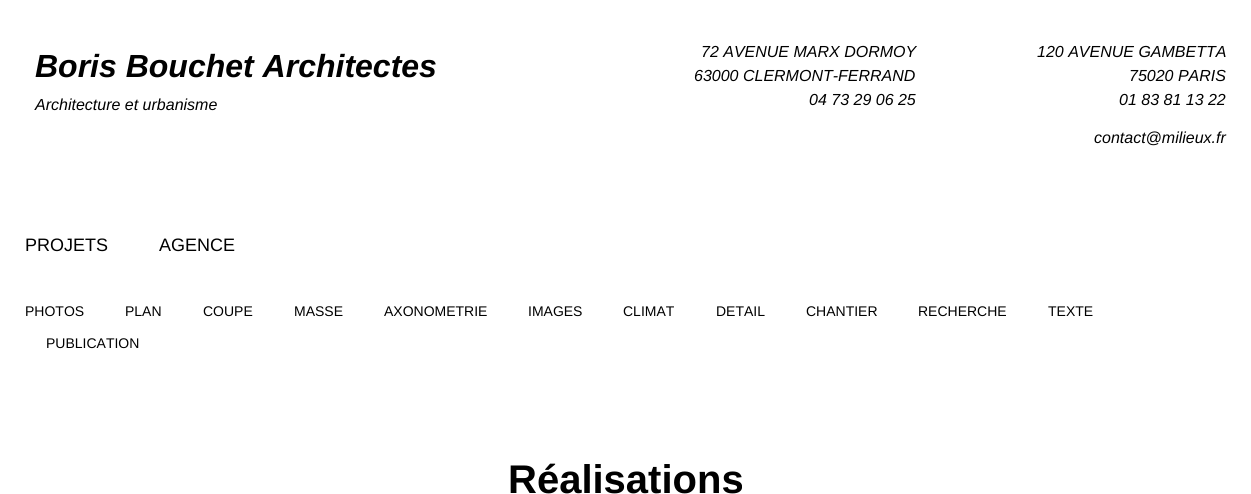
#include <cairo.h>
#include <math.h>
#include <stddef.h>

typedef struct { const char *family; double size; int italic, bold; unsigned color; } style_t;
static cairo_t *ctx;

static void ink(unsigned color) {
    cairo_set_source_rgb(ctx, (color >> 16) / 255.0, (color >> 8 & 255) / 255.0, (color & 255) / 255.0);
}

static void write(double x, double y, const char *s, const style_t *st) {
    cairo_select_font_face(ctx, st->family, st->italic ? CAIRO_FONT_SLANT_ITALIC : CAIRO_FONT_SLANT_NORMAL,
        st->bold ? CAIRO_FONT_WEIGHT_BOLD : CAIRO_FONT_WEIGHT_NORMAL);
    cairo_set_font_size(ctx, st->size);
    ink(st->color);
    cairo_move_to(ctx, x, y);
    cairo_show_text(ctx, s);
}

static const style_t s1 = {"Liberation Sans", 32, 1, 1, 0x000000};
static const style_t s2 = {"Liberation Sans", 16, 1, 0, 0x000000};
static const style_t s3 = {"Liberation Sans", 18, 0, 0, 0x000000};
static const style_t s4 = {"Liberation Sans", 14, 0, 0, 0x000000};
static const style_t s5 = {"Liberation Sans", 40, 0, 1, 0x000000};

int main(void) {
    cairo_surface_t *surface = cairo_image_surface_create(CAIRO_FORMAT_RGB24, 1251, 494);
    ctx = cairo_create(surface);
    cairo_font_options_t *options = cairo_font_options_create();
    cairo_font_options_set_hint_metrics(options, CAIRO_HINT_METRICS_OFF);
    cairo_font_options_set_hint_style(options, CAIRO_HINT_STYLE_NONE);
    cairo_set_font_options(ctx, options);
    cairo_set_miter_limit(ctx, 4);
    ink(0xffffff);
    cairo_paint(ctx);
    write(35, 77, "Boris Bouchet Architectes", &s1);
    write(35, 110, "Architecture et urbanisme", &s2);
    write(701, 57, "72 AVENUE MARX DORMOY", &s2);
    write(694, 81, "63000 CLERMONT-FERRAND", &s2);
    write(809, 105, "04 73 29 06 25", &s2);
    write(1037, 57, "120 AVENUE GAMBETTA", &s2);
    write(1129, 81, "75020 PARIS", &s2);
    write(1119, 105, "01 83 81 13 22", &s2);
    write(1094, 143, "contact@milieux.fr", &s2);
    write(25, 251, "PROJETS", &s3);
    write(159, 251, "AGENCE", &s3);
    write(25, 316, "PHOTOS", &s4);
    write(125, 316, "PLAN", &s4);
    write(203, 316, "COUPE", &s4);
    write(294, 316, "MASSE", &s4);
    write(384, 316, "AXONOMETRIE", &s4);
    write(528, 316, "IMAGES", &s4);
    write(623, 316, "CLIMAT", &s4);
    write(716, 316, "DETAIL", &s4);
    write(806, 316, "CHANTIER", &s4);
    write(918, 316, "RECHERCHE", &s4);
    write(1048, 316, "TEXTE", &s4);
    write(46, 348, "PUBLICATION", &s4);
    write(508, 493, "Réalisations", &s5);
    cairo_surface_write_to_png(surface, "screenshot.png");
    cairo_font_options_destroy(options);
    cairo_destroy(ctx);
    cairo_surface_destroy(surface);
    return 0;
}
